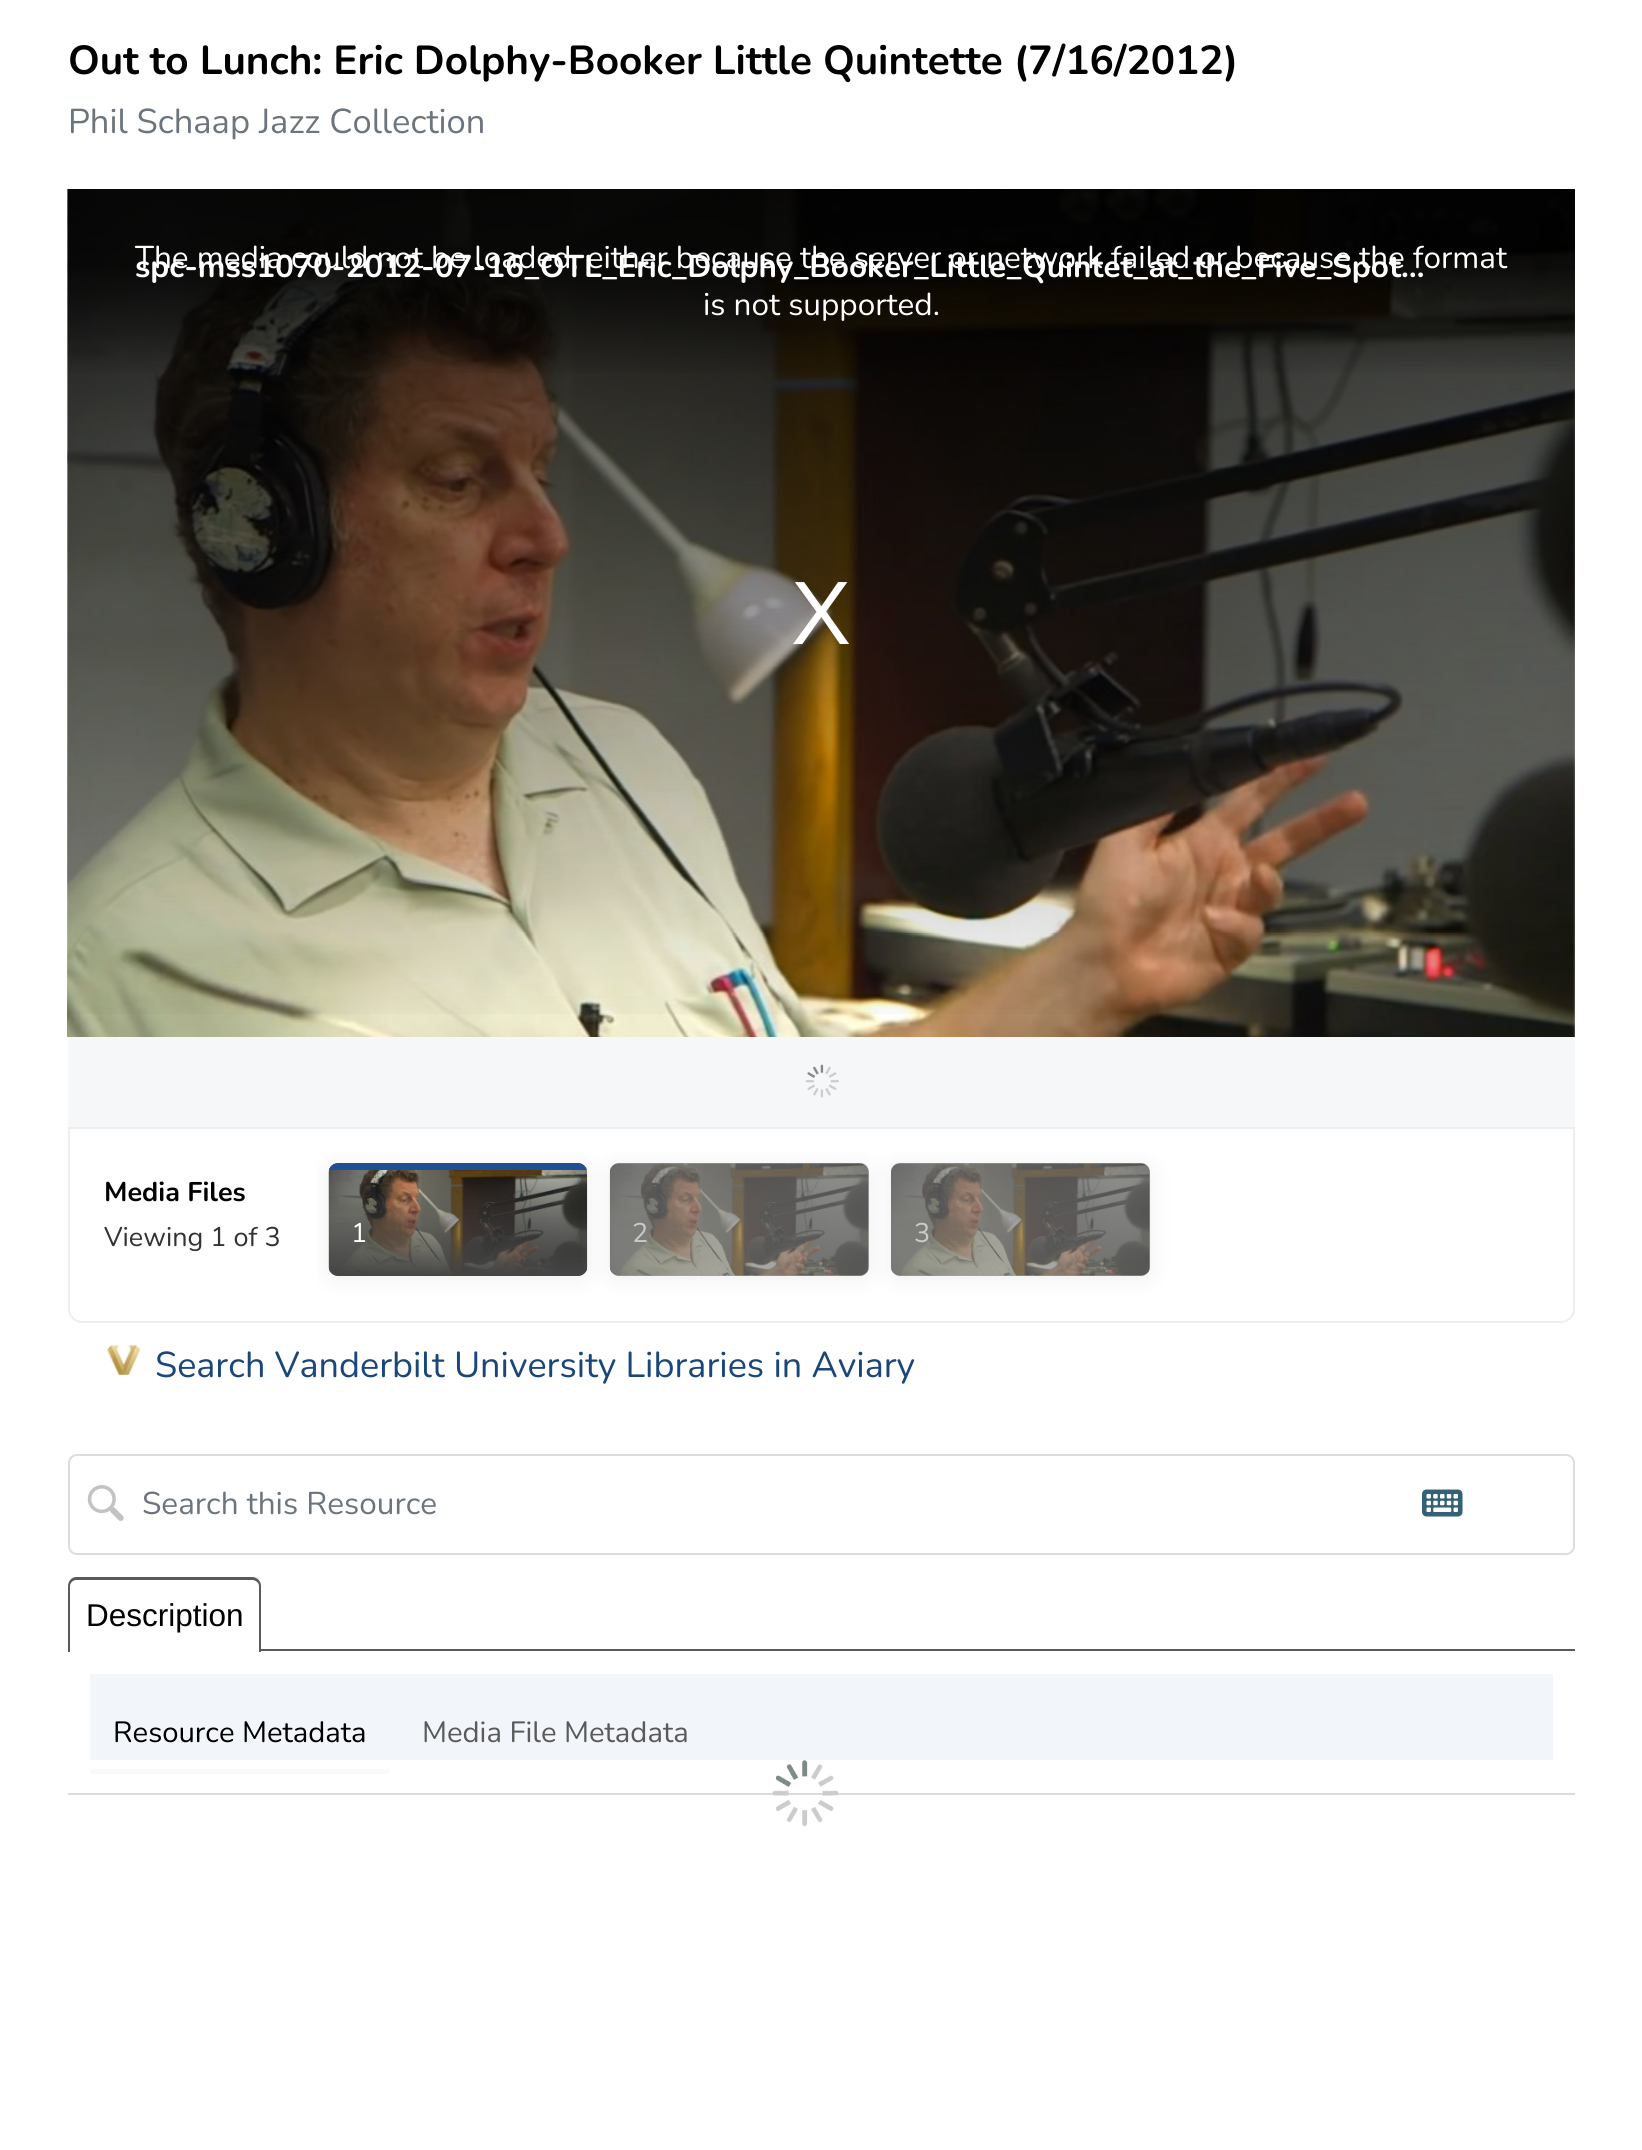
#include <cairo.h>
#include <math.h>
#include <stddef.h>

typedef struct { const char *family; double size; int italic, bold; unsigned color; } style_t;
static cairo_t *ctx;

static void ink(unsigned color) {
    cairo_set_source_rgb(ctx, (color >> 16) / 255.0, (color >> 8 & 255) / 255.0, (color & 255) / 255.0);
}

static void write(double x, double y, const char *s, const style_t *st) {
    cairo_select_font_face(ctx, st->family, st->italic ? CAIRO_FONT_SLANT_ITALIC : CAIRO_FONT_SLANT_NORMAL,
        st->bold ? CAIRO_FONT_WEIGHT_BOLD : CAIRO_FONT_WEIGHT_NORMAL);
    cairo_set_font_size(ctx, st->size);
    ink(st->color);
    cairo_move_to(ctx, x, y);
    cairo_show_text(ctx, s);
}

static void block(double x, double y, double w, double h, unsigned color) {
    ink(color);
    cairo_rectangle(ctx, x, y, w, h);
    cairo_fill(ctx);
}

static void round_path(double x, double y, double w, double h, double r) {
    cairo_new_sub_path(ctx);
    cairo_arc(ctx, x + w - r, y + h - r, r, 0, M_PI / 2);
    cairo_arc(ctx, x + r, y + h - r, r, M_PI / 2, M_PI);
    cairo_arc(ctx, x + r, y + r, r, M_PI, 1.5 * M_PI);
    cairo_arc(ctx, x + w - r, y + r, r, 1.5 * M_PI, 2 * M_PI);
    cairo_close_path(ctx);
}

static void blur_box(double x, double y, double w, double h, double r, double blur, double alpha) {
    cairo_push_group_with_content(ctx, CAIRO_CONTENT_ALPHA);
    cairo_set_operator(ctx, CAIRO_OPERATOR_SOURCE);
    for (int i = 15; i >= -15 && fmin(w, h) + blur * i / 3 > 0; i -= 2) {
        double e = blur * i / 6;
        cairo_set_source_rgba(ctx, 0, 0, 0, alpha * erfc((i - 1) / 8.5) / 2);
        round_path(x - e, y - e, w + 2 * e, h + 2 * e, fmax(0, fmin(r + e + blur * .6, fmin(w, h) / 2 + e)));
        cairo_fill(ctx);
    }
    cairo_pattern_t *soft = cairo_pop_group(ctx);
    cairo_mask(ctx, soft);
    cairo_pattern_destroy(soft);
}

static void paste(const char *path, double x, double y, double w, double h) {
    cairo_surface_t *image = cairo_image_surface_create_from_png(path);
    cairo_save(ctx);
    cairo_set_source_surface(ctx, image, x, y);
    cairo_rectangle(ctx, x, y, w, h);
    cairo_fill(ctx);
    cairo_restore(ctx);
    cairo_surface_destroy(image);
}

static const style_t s1 = {"Nunito", 40.5, 0, 1, 0x000000};
static const style_t s2 = {"Nunito", 34.5, 0, 0, 0x6c757d};
static const style_t s3 = {"Nunito", 31.5, 0, 1, 0xffffff};
static const style_t s4 = {"Nunito", 31.5, 0, 0, 0xffffff};
static const style_t s5 = {"Liberation Sans", 90, 0, 0, 0xffffff};
static const style_t s6 = {"Nunito", 27, 0, 1, 0x000000};
static const style_t s7 = {"Nunito", 27, 0, 0, 0x333333};
static const style_t s8 = {"Nunito", 27, 0, 0, 0xffffff};
static const style_t s9 = {"Nunito", 27, 0, 0, 0xcacaca};
static const style_t s10 = {"Nunito", 36, 0, 0, 0x1a4679};
static const style_t s11 = {"Nunito", 31.5, 0, 0, 0x6c757d};
static const style_t s12 = {"Liberation Sans", 31.5, 0, 0, 0x000000};
static const style_t s13 = {"Nunito", 29.25, 0, 0, 0x000000};
static const style_t s14 = {"Nunito", 29.25, 0, 0, 0x5a5a5a};

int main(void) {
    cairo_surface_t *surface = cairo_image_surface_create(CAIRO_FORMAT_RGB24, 1642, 2150);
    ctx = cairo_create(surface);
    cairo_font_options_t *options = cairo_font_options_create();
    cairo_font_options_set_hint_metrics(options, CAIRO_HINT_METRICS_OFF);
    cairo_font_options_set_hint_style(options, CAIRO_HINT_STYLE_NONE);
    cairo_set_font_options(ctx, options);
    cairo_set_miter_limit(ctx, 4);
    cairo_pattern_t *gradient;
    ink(0xffffff);
    cairo_paint(ctx);
    block(68, 1793, 1507, 2, 0xdbdbdb);
    write(68, 74, "Out to Lunch: Eric Dolphy-Booker Little Quintette (7/16/2012)", &s1);
    write(68, 133, "Phil Schaap Jazz Collection", &s2);
    paste("pic1.png", 67, 189, 1508, 848);
    gradient = cairo_pattern_create_linear(821, 189, 821, 1037);
    cairo_pattern_add_color_stop_rgba(gradient, 0, 0, 0, 0, 0.8);
    cairo_pattern_add_color_stop_rgba(gradient, 1, 0, 0, 0, 0);
    cairo_set_source(ctx, gradient);
    cairo_pattern_destroy(gradient);
    cairo_rectangle(ctx, 68, 189, 1507, 825);
    cairo_fill(ctx);
    gradient = cairo_pattern_create_linear(821, 378, 821, 189);
    cairo_pattern_add_color_stop_rgba(gradient, 0, 0, 0, 0, 0);
    cairo_pattern_add_color_stop_rgba(gradient, 0.6, 0, 0, 0, 0.7);
    cairo_set_source(ctx, gradient);
    cairo_pattern_destroy(gradient);
    cairo_rectangle(ctx, 68, 189, 1507, 184);
    cairo_fill(ctx);
    write(135, 277, "spc-mss1070-2012-07-16_OTL_Eric_Dolphy_Booker_Little_Quintet_at_the_Five_Spot…", &s3);
    write(135, 268, "The media could not be loaded, either because the server or network failed or because the format", &s4);
    write(703, 315, "is not supported.", &s4);
    write(791, 644, "X", &s5);
    block(68, 1037, 1507, 90, 0xf5f7f8);
    paste("pic2.png", 805, 1064, 34, 34);
    cairo_new_path(ctx);
    cairo_move_to(ctx, 69, 1128);
    cairo_line_to(ctx, 1574, 1128);
    cairo_line_to(ctx, 1574, 1309);
    cairo_curve_to(ctx, 1574, 1316, 1568, 1322, 1561, 1322);
    cairo_line_to(ctx, 82, 1322);
    cairo_curve_to(ctx, 75, 1322, 69, 1316, 69, 1309);
    cairo_close_path(ctx);
    ink(0xeeeeee);
    cairo_stroke(ctx);
    write(104, 1201, "Media Files", &s6);
    write(104, 1246, "Viewing 1 of 3", &s7);
    cairo_save(ctx);
    cairo_rectangle(ctx, 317, 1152, 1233, 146);
    cairo_clip(ctx);
    ink(0xeeeeee);
    blur_box(329, 1166, 258, 112, 9, 11, 1);
    cairo_restore(ctx);
    ink(0xffffff);
    round_path(329, 1163, 258, 113, 9);
    cairo_fill(ctx);
    paste("pic3.png", 328, 1163, 260, 113);
    gradient = cairo_pattern_create_linear(459, 1163, 459, 1276);
    cairo_pattern_add_color_stop_rgba(gradient, 0, 0.267, 0.267, 0.267, 0);
    cairo_pattern_add_color_stop_rgba(gradient, 1, 0.267, 0.267, 0.267, 1);
    cairo_set_source(ctx, gradient);
    cairo_pattern_destroy(gradient);
    round_path(329, 1163, 258, 113, 9);
    cairo_fill(ctx);
    cairo_save(ctx);
    cairo_rectangle(ctx, 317, 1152, 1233, 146);
    cairo_clip(ctx);
    ink(0xeeeeee);
    blur_box(610, 1166, 259, 112, 9, 11, 1);
    cairo_restore(ctx);
    cairo_save(ctx);
    round_path(329, 1163, 258, 113, 9);
    cairo_clip(ctx);
    block(329, 1163, 258, 7, 0x204f92);
    cairo_restore(ctx);
    write(351, 1242, "1", &s8);
    round_path(610, 1163, 259, 113, 9);
    cairo_fill(ctx);
    paste("pic4.png", 609, 1163, 260, 113);
    cairo_save(ctx);
    cairo_rectangle(ctx, 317, 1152, 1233, 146);
    cairo_clip(ctx);
    ink(0xeeeeee);
    blur_box(891, 1166, 259, 112, 9, 11, 1);
    cairo_restore(ctx);
    cairo_set_source_rgba(ctx, 0.471, 0.471, 0.471, 0.66);
    round_path(610, 1163, 259, 113, 9);
    cairo_fill(ctx);
    write(632, 1242, "2", &s9);
    ink(0xffffff);
    round_path(891, 1163, 259, 113, 9);
    cairo_fill(ctx);
    paste("pic5.png", 891, 1163, 259, 113);
    cairo_set_source_rgba(ctx, 0.471, 0.471, 0.471, 0.66);
    round_path(891, 1163, 259, 113, 9);
    cairo_fill(ctx);
    write(914, 1242, "3", &s9);
    paste("pic6.png", 107, 1345, 34, 30);
    write(155, 1377, "Search Vanderbilt University Libraries in Aviary", &s10);
    round_path(69, 1455, 1505, 99, 8);
    ink(0xdddddd);
    cairo_stroke(ctx);
    paste("pic7.png", 87, 1485, 37, 36);
    write(142, 1514, "Search this Resource", &s11);
    paste("pic8.png", 1422, 1489, 41, 28);
    block(261, 1649, 1314, 2, 0x5a5a5a);
    cairo_set_fill_rule(ctx, CAIRO_FILL_RULE_EVEN_ODD);
    cairo_new_path(ctx);
    cairo_move_to(ctx, 76, 1577);
    cairo_line_to(ctx, 252, 1577);
    cairo_curve_to(ctx, 257, 1577, 261, 1581, 261, 1586);
    cairo_line_to(ctx, 261, 1652);
    cairo_line_to(ctx, 68, 1652);
    cairo_line_to(ctx, 68, 1586);
    cairo_curve_to(ctx, 68, 1581, 72, 1577, 76, 1577);
    cairo_close_path(ctx);
    cairo_move_to(ctx, 76, 1580);
    cairo_line_to(ctx, 252, 1580);
    cairo_curve_to(ctx, 256, 1580, 259, 1583, 259, 1586);
    cairo_line_to(ctx, 259, 1652);
    cairo_line_to(ctx, 70, 1652);
    cairo_line_to(ctx, 70, 1586);
    cairo_curve_to(ctx, 70, 1583, 73, 1580, 76, 1580);
    cairo_close_path(ctx);
    cairo_fill(ctx);
    write(86, 1626, "Description", &s12);
    block(90, 1674, 1463, 86, 0xf2f5f9);
    block(90, 1769, 299, 5, 0xfafafb);
    write(113, 1742, "Resource Metadata", &s13);
    write(422, 1742, "Media File Metadata", &s14);
    paste("pic9.png", 772, 1760, 67, 67);
    cairo_surface_write_to_png(surface, "screenshot.png");
    cairo_font_options_destroy(options);
    cairo_destroy(ctx);
    cairo_surface_destroy(surface);
    return 0;
}
